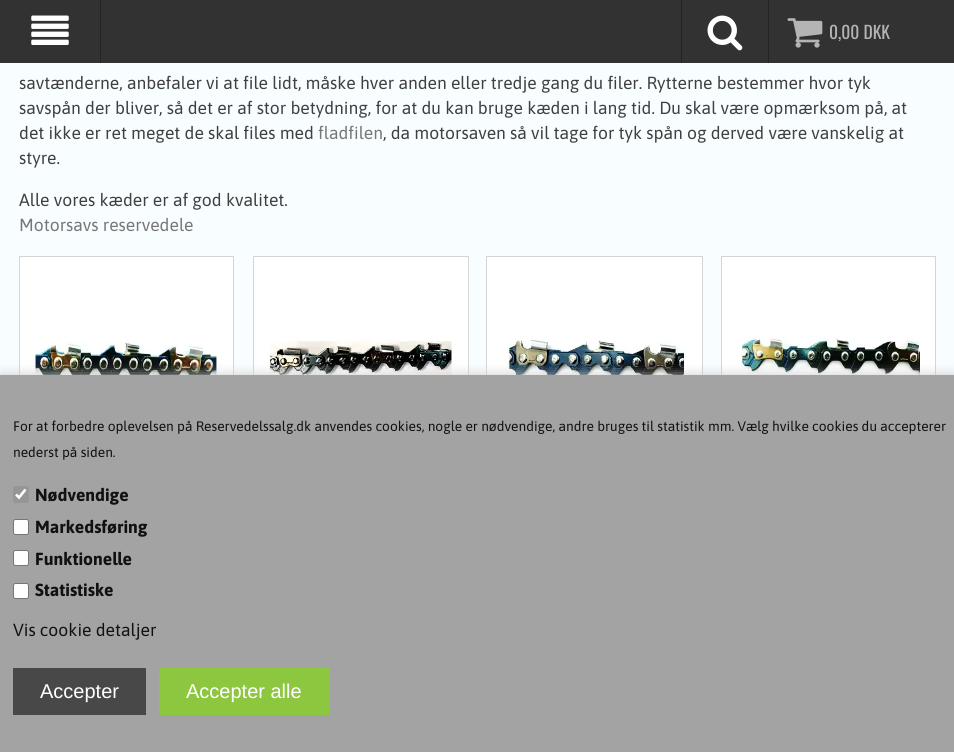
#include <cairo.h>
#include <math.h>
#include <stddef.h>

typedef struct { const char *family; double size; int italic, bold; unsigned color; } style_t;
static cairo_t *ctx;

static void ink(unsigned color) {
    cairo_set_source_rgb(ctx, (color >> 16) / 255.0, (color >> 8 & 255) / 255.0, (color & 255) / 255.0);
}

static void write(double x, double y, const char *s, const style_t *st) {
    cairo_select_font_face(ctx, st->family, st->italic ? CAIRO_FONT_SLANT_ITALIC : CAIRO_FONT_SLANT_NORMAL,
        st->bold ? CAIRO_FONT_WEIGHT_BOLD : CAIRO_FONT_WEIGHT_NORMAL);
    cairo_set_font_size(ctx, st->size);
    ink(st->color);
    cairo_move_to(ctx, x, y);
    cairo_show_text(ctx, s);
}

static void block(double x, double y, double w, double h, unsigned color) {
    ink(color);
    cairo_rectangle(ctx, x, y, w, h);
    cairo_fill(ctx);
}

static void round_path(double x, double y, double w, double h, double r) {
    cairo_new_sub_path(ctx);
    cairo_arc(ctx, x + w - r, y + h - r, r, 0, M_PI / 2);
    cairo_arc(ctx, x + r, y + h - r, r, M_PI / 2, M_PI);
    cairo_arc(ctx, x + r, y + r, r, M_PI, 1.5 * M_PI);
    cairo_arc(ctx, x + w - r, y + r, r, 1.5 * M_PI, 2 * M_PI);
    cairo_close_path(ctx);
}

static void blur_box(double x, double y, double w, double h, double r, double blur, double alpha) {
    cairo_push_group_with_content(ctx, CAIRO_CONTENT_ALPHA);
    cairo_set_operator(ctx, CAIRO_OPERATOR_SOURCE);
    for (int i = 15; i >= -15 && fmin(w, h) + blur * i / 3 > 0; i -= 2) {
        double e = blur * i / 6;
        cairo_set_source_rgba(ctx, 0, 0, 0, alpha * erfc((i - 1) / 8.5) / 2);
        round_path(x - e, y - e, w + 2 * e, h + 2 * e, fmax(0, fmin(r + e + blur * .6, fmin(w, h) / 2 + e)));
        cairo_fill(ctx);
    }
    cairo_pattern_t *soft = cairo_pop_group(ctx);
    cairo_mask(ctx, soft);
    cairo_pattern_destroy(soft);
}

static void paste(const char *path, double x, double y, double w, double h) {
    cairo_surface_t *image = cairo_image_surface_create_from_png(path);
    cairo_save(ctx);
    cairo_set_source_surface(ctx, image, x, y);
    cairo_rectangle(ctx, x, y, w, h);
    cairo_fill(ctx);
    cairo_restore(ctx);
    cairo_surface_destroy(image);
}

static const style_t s1 = {"Oswald", 17.5, 0, 0, 0xb4b4b4};
static const style_t s2 = {"Asap", 17.5, 0, 0, 0x404040};
static const style_t s3 = {"Asap", 17.5, 0, 0, 0x777777};
static const style_t s4 = {"Asap", 13.75, 0, 0, 0x111111};
static const style_t s5 = {"Asap", 17.5, 0, 1, 0x111111};
static const style_t s6 = {"Asap", 17.5, 0, 0, 0x111111};
static const style_t s7 = {"Liberation Sans", 20, 0, 0, 0xffffff};

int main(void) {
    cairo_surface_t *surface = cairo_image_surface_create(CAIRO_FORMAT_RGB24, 954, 752);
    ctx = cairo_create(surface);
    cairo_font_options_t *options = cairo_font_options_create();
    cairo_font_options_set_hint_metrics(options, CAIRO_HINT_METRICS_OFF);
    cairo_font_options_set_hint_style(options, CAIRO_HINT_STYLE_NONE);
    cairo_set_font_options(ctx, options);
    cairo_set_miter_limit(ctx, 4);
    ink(0xf8fdff);
    cairo_paint(ctx);
    block(0, 0, 954, 63, 0x323232);
    block(100, 0, 1, 63, 0x232323);
    paste("pic1.png", 31, 15, 38, 30);
    block(681, 0, 1, 63, 0x232323);
    paste("pic2.png", 707, 15, 36, 36);
    block(768, 0, 1, 63, 0x232323);
    paste("pic3.png", 787, 18, 36, 30);
    write(829, 39, "0,00 DKK", &s1);
    write(19, 89, "savtænderne, anbefaler vi at file lidt, måske hver anden eller tredje gang du filer. Rytterne bestemmer hvor tyk", &s2);
    write(19, 114, "savspån der bliver, så det er af stor betydning, for at du kan bruge kæden i lang tid. Du skal være opmærksom på, at", &s2);
    write(19, 139, "det ikke er ret meget de skal files med", &s2);
    write(318, 139, "fladfilen", &s3);
    write(383, 139, ", da motorsaven så vil tage for tyk spån og derved være vanskelig at", &s2);
    write(19, 164, "styre.", &s2);
    write(19, 206, "Alle vores kæder er af god kvalitet.", &s2);
    write(19, 231, "Motorsavs reservedele", &s3);
    block(20, 257, 213, 118, 0xffffff);
    cairo_rectangle(ctx, 19.5, 256.5, 214, 266);
    ink(0xd5d5d5);
    cairo_set_line_width(ctx, 1);
    cairo_stroke(ctx);
    paste("pic4.png", 35, 341, 183, 34);
    block(254, 257, 214, 118, 0xffffff);
    cairo_rectangle(ctx, 253.5, 256.5, 215, 266);
    ink(0xd5d5d5);
    cairo_stroke(ctx);
    paste("pic5.png", 269, 340, 183, 35);
    block(487, 257, 215, 118, 0xffffff);
    cairo_rectangle(ctx, 486.5, 256.5, 216, 266);
    ink(0xd5d5d5);
    cairo_stroke(ctx);
    paste("pic6.png", 506, 340, 179, 35);
    block(722, 257, 213, 118, 0xffffff);
    cairo_rectangle(ctx, 721.5, 256.5, 214, 266);
    ink(0xd5d5d5);
    cairo_stroke(ctx);
    paste("pic7.png", 741, 337, 179, 38);
    ink(0xcccccc);
    blur_box(0, 375, 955, 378, 0, 6, 1);
    block(0, 375, 954, 377, 0xa3a3a3);
    write(13, 431, "For at forbedre oplevelsen på Reservedelssalg.dk anvendes cookies, nogle er nødvendige, andre bruges til statistik mm. Vælg hvilke cookies du accepterer", &s4);
    write(13, 457, "nederst på siden.", &s4);
    ink(0x969696);
    round_path(13, 486, 16, 17, 2.5);
    cairo_fill(ctx);
    cairo_new_path(ctx);
    cairo_move_to(ctx, 16, 494.5);
    cairo_line_to(ctx, 19, 497.5);
    cairo_line_to(ctx, 25.5, 489.5);
    ink(0xffffff);
    cairo_set_line_width(ctx, 2.6);
    cairo_stroke(ctx);
    write(35, 501, "Nødvendige", &s5);
    ink(0xffffff);
    round_path(13.5, 519.5, 15, 15, 2);
    cairo_fill_preserve(ctx);
    ink(0x767676);
    cairo_set_line_width(ctx, 1);
    cairo_stroke(ctx);
    write(35, 533, "Markedsføring", &s5);
    ink(0xffffff);
    round_path(13.5, 550.5, 15, 15, 2);
    cairo_fill_preserve(ctx);
    ink(0x767676);
    cairo_stroke(ctx);
    write(35, 565, "Funktionelle", &s5);
    ink(0xffffff);
    round_path(13.5, 583.5, 15, 15, 2);
    cairo_fill_preserve(ctx);
    ink(0x767676);
    cairo_stroke(ctx);
    write(35, 596, "Statistiske", &s5);
    write(13, 636, "Vis cookie detaljer", &s6);
    block(13, 668, 133, 47, 0x484848);
    write(40, 698, "Accepter", &s7);
    block(159, 668, 171, 47, 0x8dc63f);
    write(186, 698, "Accepter alle", &s7);
    cairo_surface_write_to_png(surface, "screenshot.png");
    cairo_font_options_destroy(options);
    cairo_destroy(ctx);
    cairo_surface_destroy(surface);
    return 0;
}
